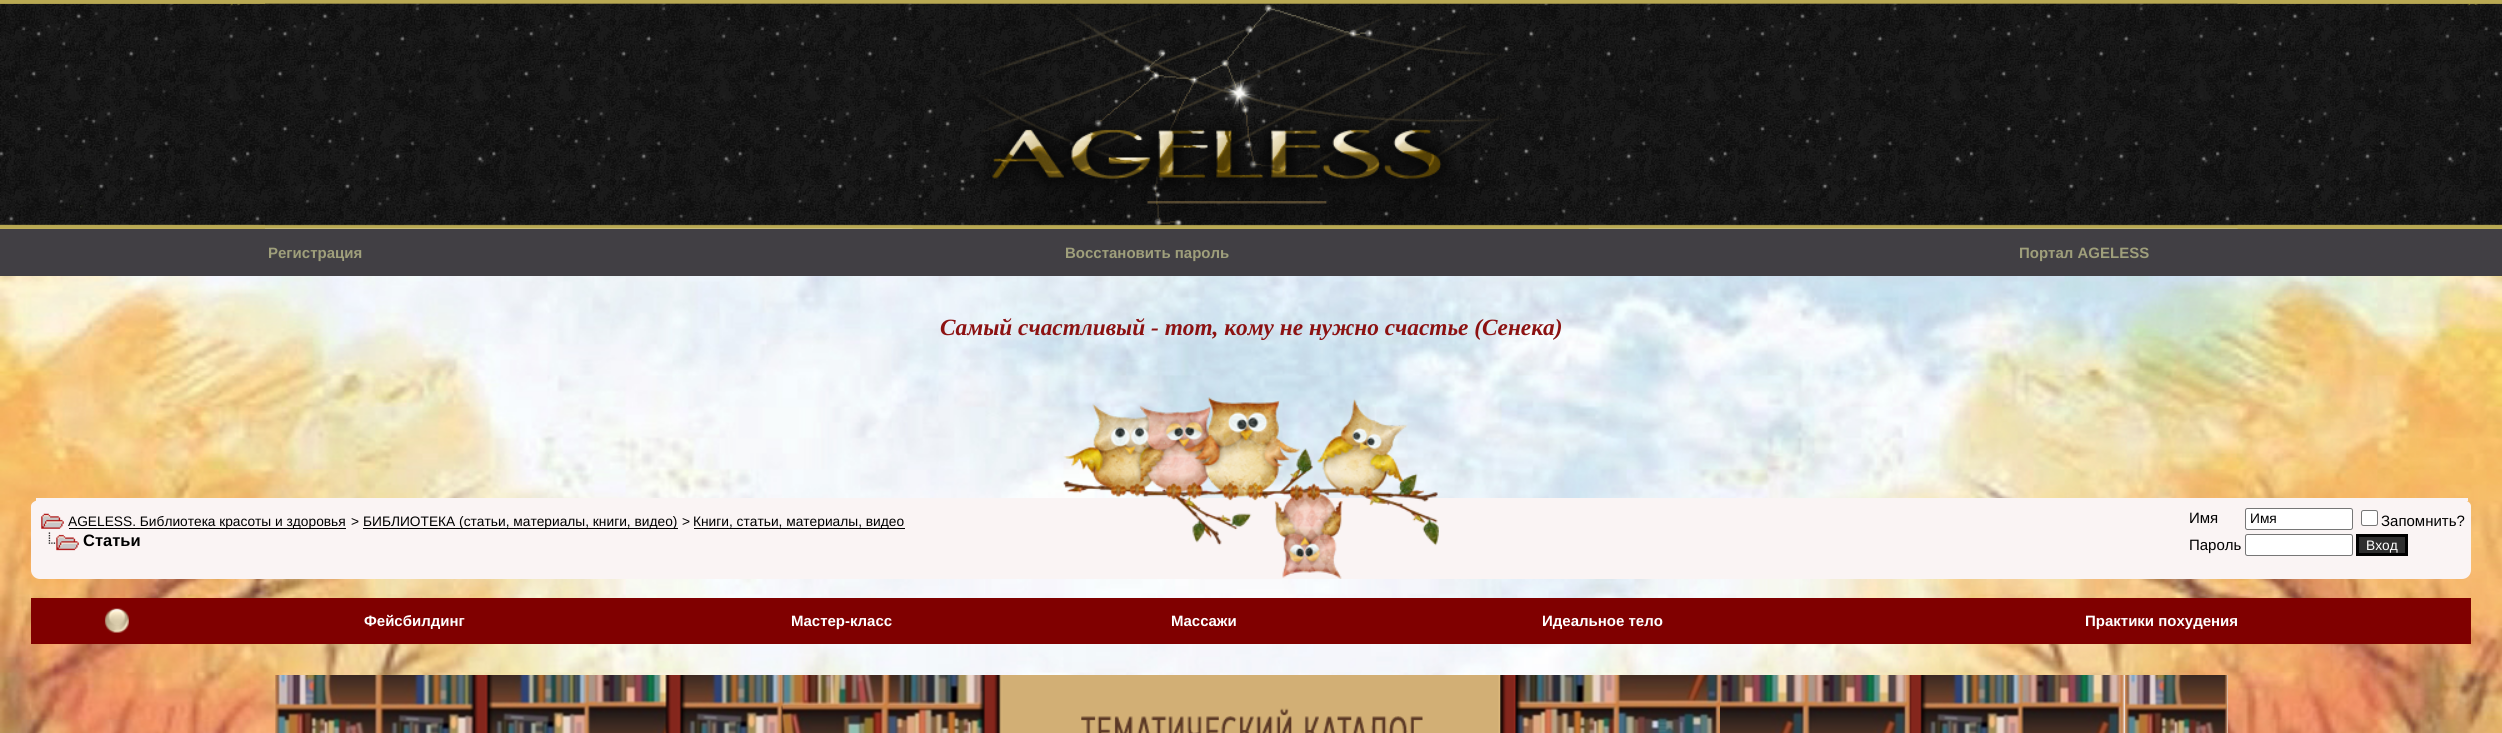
#include <cairo.h>
#include <math.h>
#include <stddef.h>

typedef struct { const char *family; double size; int italic, bold; unsigned color; } style_t;
static cairo_t *ctx;

static void ink(unsigned color) {
    cairo_set_source_rgb(ctx, (color >> 16) / 255.0, (color >> 8 & 255) / 255.0, (color & 255) / 255.0);
}

static void write(double x, double y, const char *s, const style_t *st) {
    cairo_select_font_face(ctx, st->family, st->italic ? CAIRO_FONT_SLANT_ITALIC : CAIRO_FONT_SLANT_NORMAL,
        st->bold ? CAIRO_FONT_WEIGHT_BOLD : CAIRO_FONT_WEIGHT_NORMAL);
    cairo_set_font_size(ctx, st->size);
    ink(st->color);
    cairo_move_to(ctx, x, y);
    cairo_show_text(ctx, s);
}

static void block(double x, double y, double w, double h, unsigned color) {
    ink(color);
    cairo_rectangle(ctx, x, y, w, h);
    cairo_fill(ctx);
}

static void round_path(double x, double y, double w, double h, double r) {
    cairo_new_sub_path(ctx);
    cairo_arc(ctx, x + w - r, y + h - r, r, 0, M_PI / 2);
    cairo_arc(ctx, x + r, y + h - r, r, M_PI / 2, M_PI);
    cairo_arc(ctx, x + r, y + r, r, M_PI, 1.5 * M_PI);
    cairo_arc(ctx, x + w - r, y + r, r, 1.5 * M_PI, 2 * M_PI);
    cairo_close_path(ctx);
}

static void paste(const char *path, double x, double y, double w, double h) {
    cairo_surface_t *image = cairo_image_surface_create_from_png(path);
    cairo_save(ctx);
    cairo_set_source_surface(ctx, image, x, y);
    cairo_rectangle(ctx, x, y, w, h);
    cairo_fill(ctx);
    cairo_restore(ctx);
    cairo_surface_destroy(image);
}

static const style_t s1 = {"Liberation Sans", 15, 0, 1, 0x9f9f7b};
static const style_t s2 = {"Liberation Serif", 23.3, 1, 1, 0x8c1212};
static const style_t s3 = {"Liberation Sans", 13.75, 0, 0, 0x000000};
static const style_t s4 = {"Liberation Sans", 16.5, 0, 1, 0x000000};
static const style_t s5 = {"Liberation Sans", 15, 0, 0, 0x000000};
static const style_t s6 = {"Liberation Sans", 13.75, 0, 0, 0xffffff};
static const style_t s7 = {"Liberation Sans", 15, 0, 1, 0xffffff};

int main(void) {
    cairo_surface_t *surface = cairo_image_surface_create(CAIRO_FORMAT_RGB24, 2502, 733);
    ctx = cairo_create(surface);
    cairo_font_options_t *options = cairo_font_options_create();
    cairo_font_options_set_hint_metrics(options, CAIRO_HINT_METRICS_OFF);
    cairo_font_options_set_hint_style(options, CAIRO_HINT_STYLE_NONE);
    cairo_set_font_options(ctx, options);
    cairo_set_miter_limit(ctx, 4);
    ink(0xffffff);
    cairo_paint(ctx);
    paste("pic1.png", 0, 228, 2502, 505);
    paste("pic2.png", 0, 0, 2502, 229);
    paste("pic3.png", 0, 3, 265, 226);
    paste("pic4.png", 912, 3, 677, 226);
    paste("pic5.png", 2237, 3, 265, 226);
    block(0, 229, 2502, 47, 0x413f44);
    write(268, 258, "Регистрация", &s1);
    write(1065, 258, "Восстановить пароль", &s1);
    write(2019, 258, "Портал AGELESS", &s1);
    write(940, 335, "Самый счастливый - тот, кому не нужно счастье (Сенека)", &s2);
    ink(0xfaf4f4);
    cairo_new_path(ctx);
    cairo_move_to(ctx, 40, 500);
    cairo_line_to(ctx, 2462, 500);
    cairo_curve_to(ctx, 2467, 500, 2471, 503, 2471, 506);
    cairo_line_to(ctx, 2471, 570);
    cairo_curve_to(ctx, 2471, 575, 2467, 579, 2462, 579);
    cairo_line_to(ctx, 40, 579);
    cairo_curve_to(ctx, 35, 579, 31, 575, 31, 570);
    cairo_line_to(ctx, 31, 506);
    cairo_curve_to(ctx, 31, 503, 35, 500, 40, 500);
    cairo_close_path(ctx);
    cairo_fill(ctx);
    block(36, 498, 2432, 3, 0xfaf4f4);
    paste("pic6.png", 1063, 397, 376, 182);
    paste("pic7.png", 41, 513, 23, 16);
    block(69, 528, 277, 1, 0x000000);
    write(68, 526, "AGELESS. Библиотека красоты и здоровья", &s3);
    write(351, 526, ">", &s3);
    block(363, 528, 315, 1, 0x000000);
    write(363, 526, "БИБЛИОТЕКА (статьи, материалы, книги, видео)", &s3);
    write(682, 526, ">", &s3);
    block(694, 528, 211, 1, 0x000000);
    write(693, 526, "Книги, статьи, материалы, видео", &s3);
    paste("pic8.png", 48, 532, 31, 19);
    write(83, 546, "Статьи", &s4);
    write(2189, 523, "Имя", &s5);
    ink(0xffffff);
    round_path(2245.5, 508.5, 107, 21, 2);
    cairo_fill_preserve(ctx);
    ink(0x767676);
    cairo_set_line_width(ctx, 1);
    cairo_stroke(ctx);
    write(2250, 523, "Имя", &s3);
    ink(0xffffff);
    round_path(2361.5, 510.5, 16, 15, 2);
    cairo_fill_preserve(ctx);
    ink(0x767676);
    cairo_stroke(ctx);
    write(2381, 526, "Запомнить?", &s5);
    write(2189, 550, "Пароль", &s5);
    ink(0xffffff);
    round_path(2245.5, 534.5, 107, 21, 2);
    cairo_fill_preserve(ctx);
    ink(0x767676);
    cairo_stroke(ctx);
    ink(0x2e2e2e);
    cairo_rectangle(ctx, 2357.5, 535.5, 49, 19);
    cairo_fill_preserve(ctx);
    ink(0x000000);
    cairo_set_line_width(ctx, 3);
    cairo_stroke(ctx);
    write(2366, 550, "Вход", &s6);
    block(31, 598, 2440, 46, 0x800000);
    paste("pic9.png", 104, 608, 25, 25);
    write(364, 626, "Фейсбилдинг", &s7);
    write(791, 626, "Мастер-класс", &s7);
    write(1171, 626, "Массажи", &s7);
    write(1542, 626, "Идеальное тело", &s7);
    write(2085, 626, "Практики похудения", &s7);
    block(275, 675, 1953, 58, 0xf2e9e9);
    paste("pic10.png", 275, 675, 1953, 58);
    paste("pic11.png", 782, 675, 938, 58);
    cairo_surface_write_to_png(surface, "screenshot.png");
    cairo_font_options_destroy(options);
    cairo_destroy(ctx);
    cairo_surface_destroy(surface);
    return 0;
}
